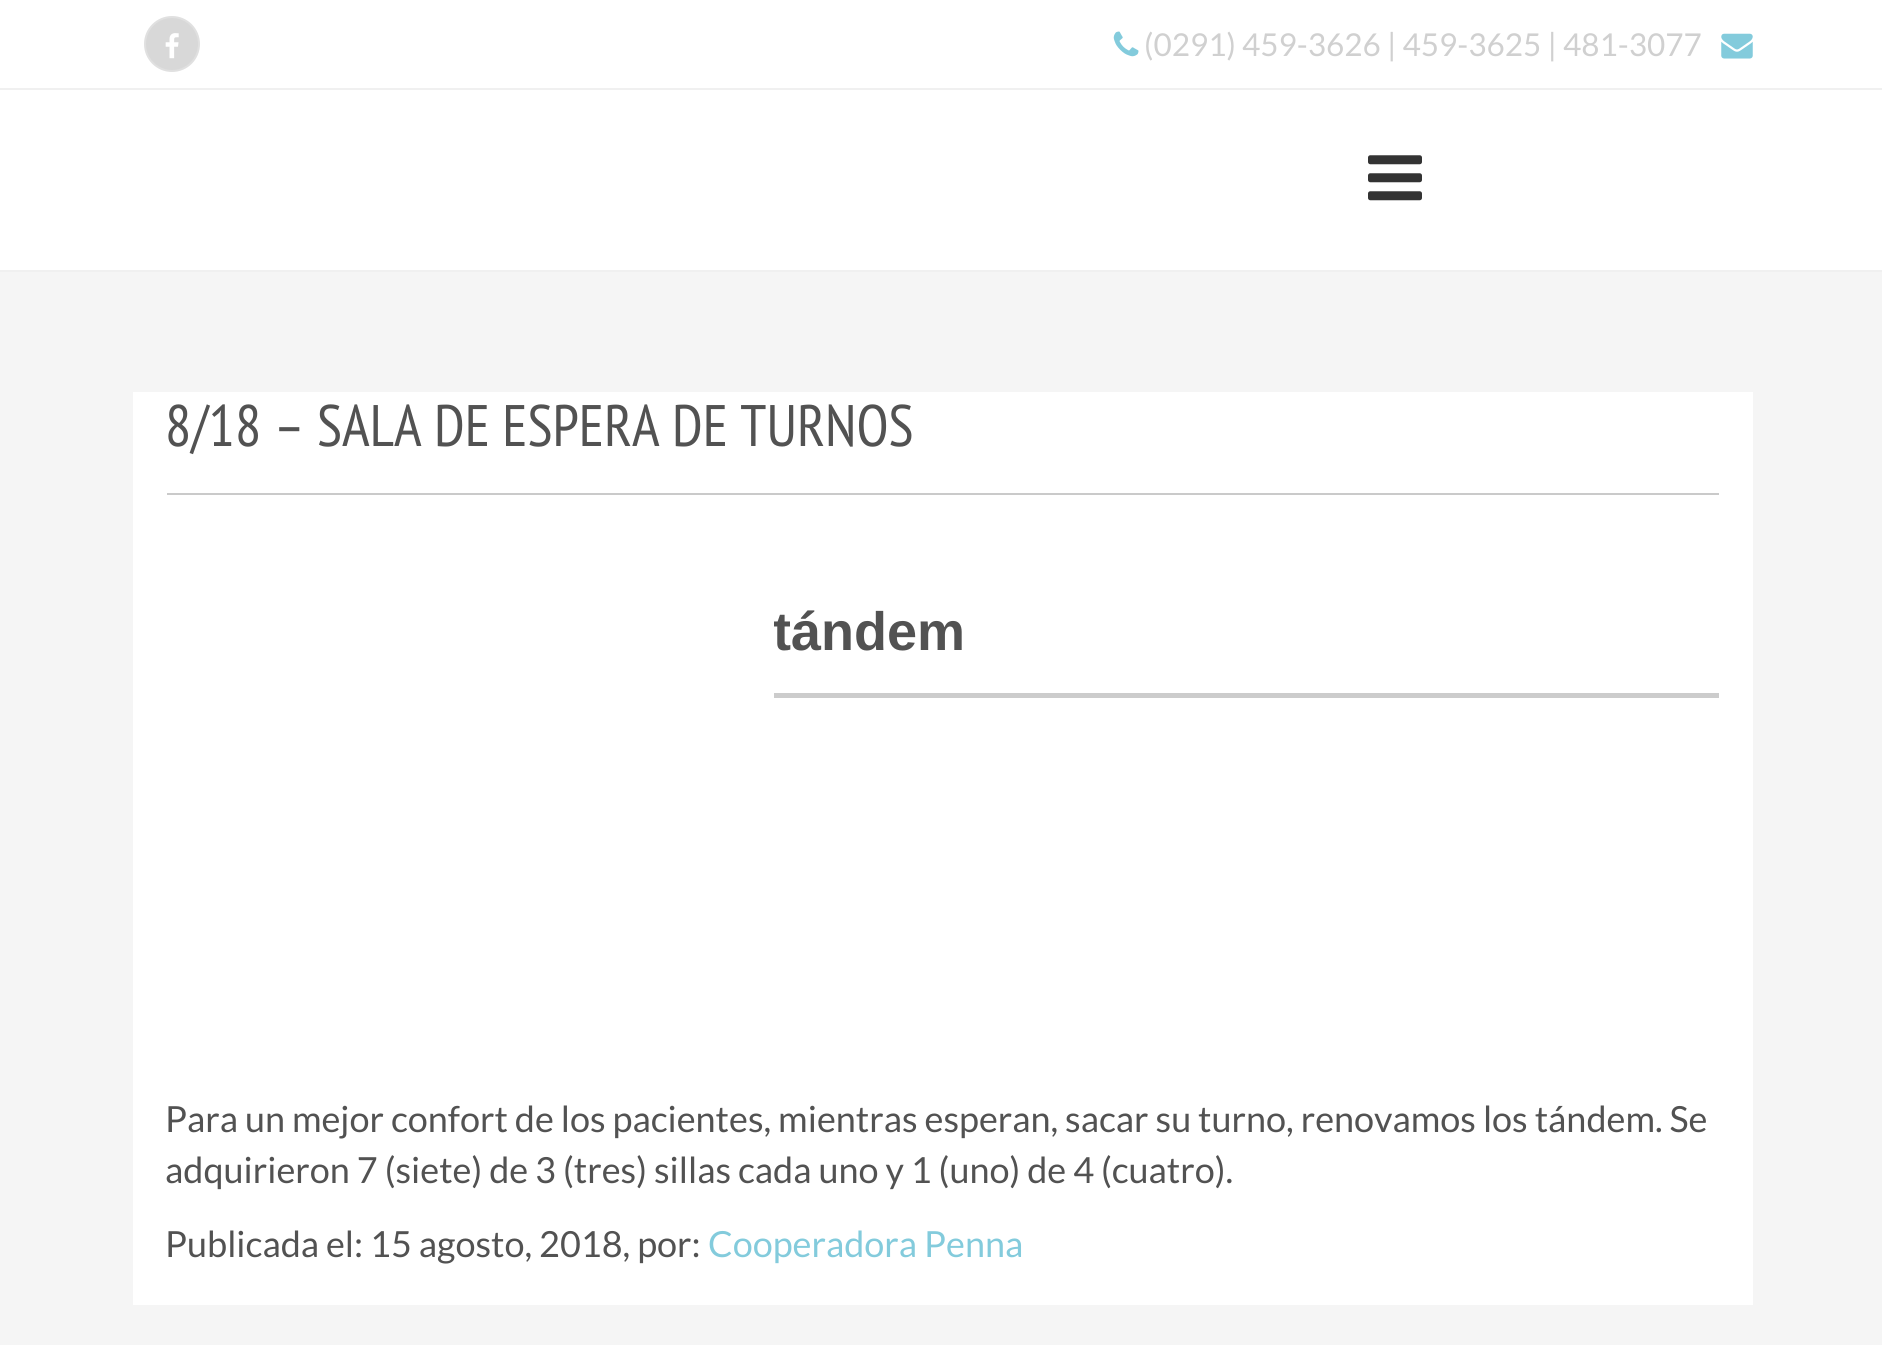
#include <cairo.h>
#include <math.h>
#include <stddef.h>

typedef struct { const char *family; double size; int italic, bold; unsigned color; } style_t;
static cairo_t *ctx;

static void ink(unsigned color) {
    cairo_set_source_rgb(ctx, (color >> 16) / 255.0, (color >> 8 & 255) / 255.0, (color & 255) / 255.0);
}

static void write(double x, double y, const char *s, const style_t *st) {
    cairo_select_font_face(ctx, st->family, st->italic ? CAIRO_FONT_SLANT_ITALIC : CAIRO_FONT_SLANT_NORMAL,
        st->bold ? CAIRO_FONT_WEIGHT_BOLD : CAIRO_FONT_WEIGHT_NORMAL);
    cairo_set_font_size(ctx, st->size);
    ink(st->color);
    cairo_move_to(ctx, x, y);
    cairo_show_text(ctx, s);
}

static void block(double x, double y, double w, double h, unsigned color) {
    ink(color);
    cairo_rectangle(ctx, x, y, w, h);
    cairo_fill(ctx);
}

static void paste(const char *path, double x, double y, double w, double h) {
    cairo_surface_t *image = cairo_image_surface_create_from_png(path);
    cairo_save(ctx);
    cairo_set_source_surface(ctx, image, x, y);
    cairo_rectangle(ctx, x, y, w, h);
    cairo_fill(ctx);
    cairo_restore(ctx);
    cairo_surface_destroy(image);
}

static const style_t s1 = {"Lato", 31.5, 0, 0, 0xd0d0d0};
static const style_t s2 = {"PT Sans Narrow", 58.5, 0, 0, 0x525252};
static const style_t s3 = {"Liberation Sans", 54, 0, 1, 0x525252};
static const style_t s4 = {"Lato", 36, 0, 0, 0x525252};
static const style_t s5 = {"Lato", 36, 0, 0, 0x83cbdc};

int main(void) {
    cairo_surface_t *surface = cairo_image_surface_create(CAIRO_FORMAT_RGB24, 1882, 1345);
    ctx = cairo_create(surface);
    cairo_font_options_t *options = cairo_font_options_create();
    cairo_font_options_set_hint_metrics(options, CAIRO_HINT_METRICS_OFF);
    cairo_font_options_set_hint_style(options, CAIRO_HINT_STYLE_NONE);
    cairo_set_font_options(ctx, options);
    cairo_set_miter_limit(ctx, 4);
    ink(0xf5f5f5);
    cairo_paint(ctx);
    block(0, 0, 1882, 270, 0xffffff);
    block(0, 270, 1882, 2, 0xf0f0f0);
    block(0, 88, 1882, 2, 0xf0f0f0);
    ink(0xd8d8d8);
    cairo_arc(ctx, 172, 44, 27, 0, 2 * M_PI);
    cairo_fill_preserve(ctx);
    ink(0xe0e0e0);
    cairo_stroke(ctx);
    paste("pic1.png", 165, 33, 14, 26);
    paste("pic2.png", 1113, 31, 26, 26);
    write(1144, 56, "(0291) 459-3626 | 459-3625 | 481-3077", &s1);
    paste("pic3.png", 1721, 33, 32, 26);
    paste("pic4.png", 1368, 155, 54, 46);
    block(133, 392, 1620, 913, 0xffffff);
    block(167, 493, 1552, 2, 0xcacaca);
    write(165, 446, "8/18 – SALA DE ESPERA DE TURNOS", &s2);
    block(774, 693, 945, 5, 0xcccccc);
    cairo_save(ctx);
    cairo_rectangle(ctx, 774, 549, 945, 410);
    cairo_clip(ctx);
    write(773, 650, "tándem", &s3);
    cairo_restore(ctx);
    write(165, 1132, "Para un mejor confort de los pacientes, mientras esperan, sacar su turno, renovamos los tándem. Se", &s4);
    write(165, 1183, "adquirieron 7 (siete) de 3 (tres) sillas cada uno y 1 (uno) de 4 (cuatro).", &s4);
    write(165, 1257, "Publicada el: 15 agosto, 2018, por:", &s4);
    write(708, 1257, "Cooperadora Penna", &s5);
    cairo_surface_write_to_png(surface, "screenshot.png");
    cairo_font_options_destroy(options);
    cairo_destroy(ctx);
    cairo_surface_destroy(surface);
    return 0;
}
